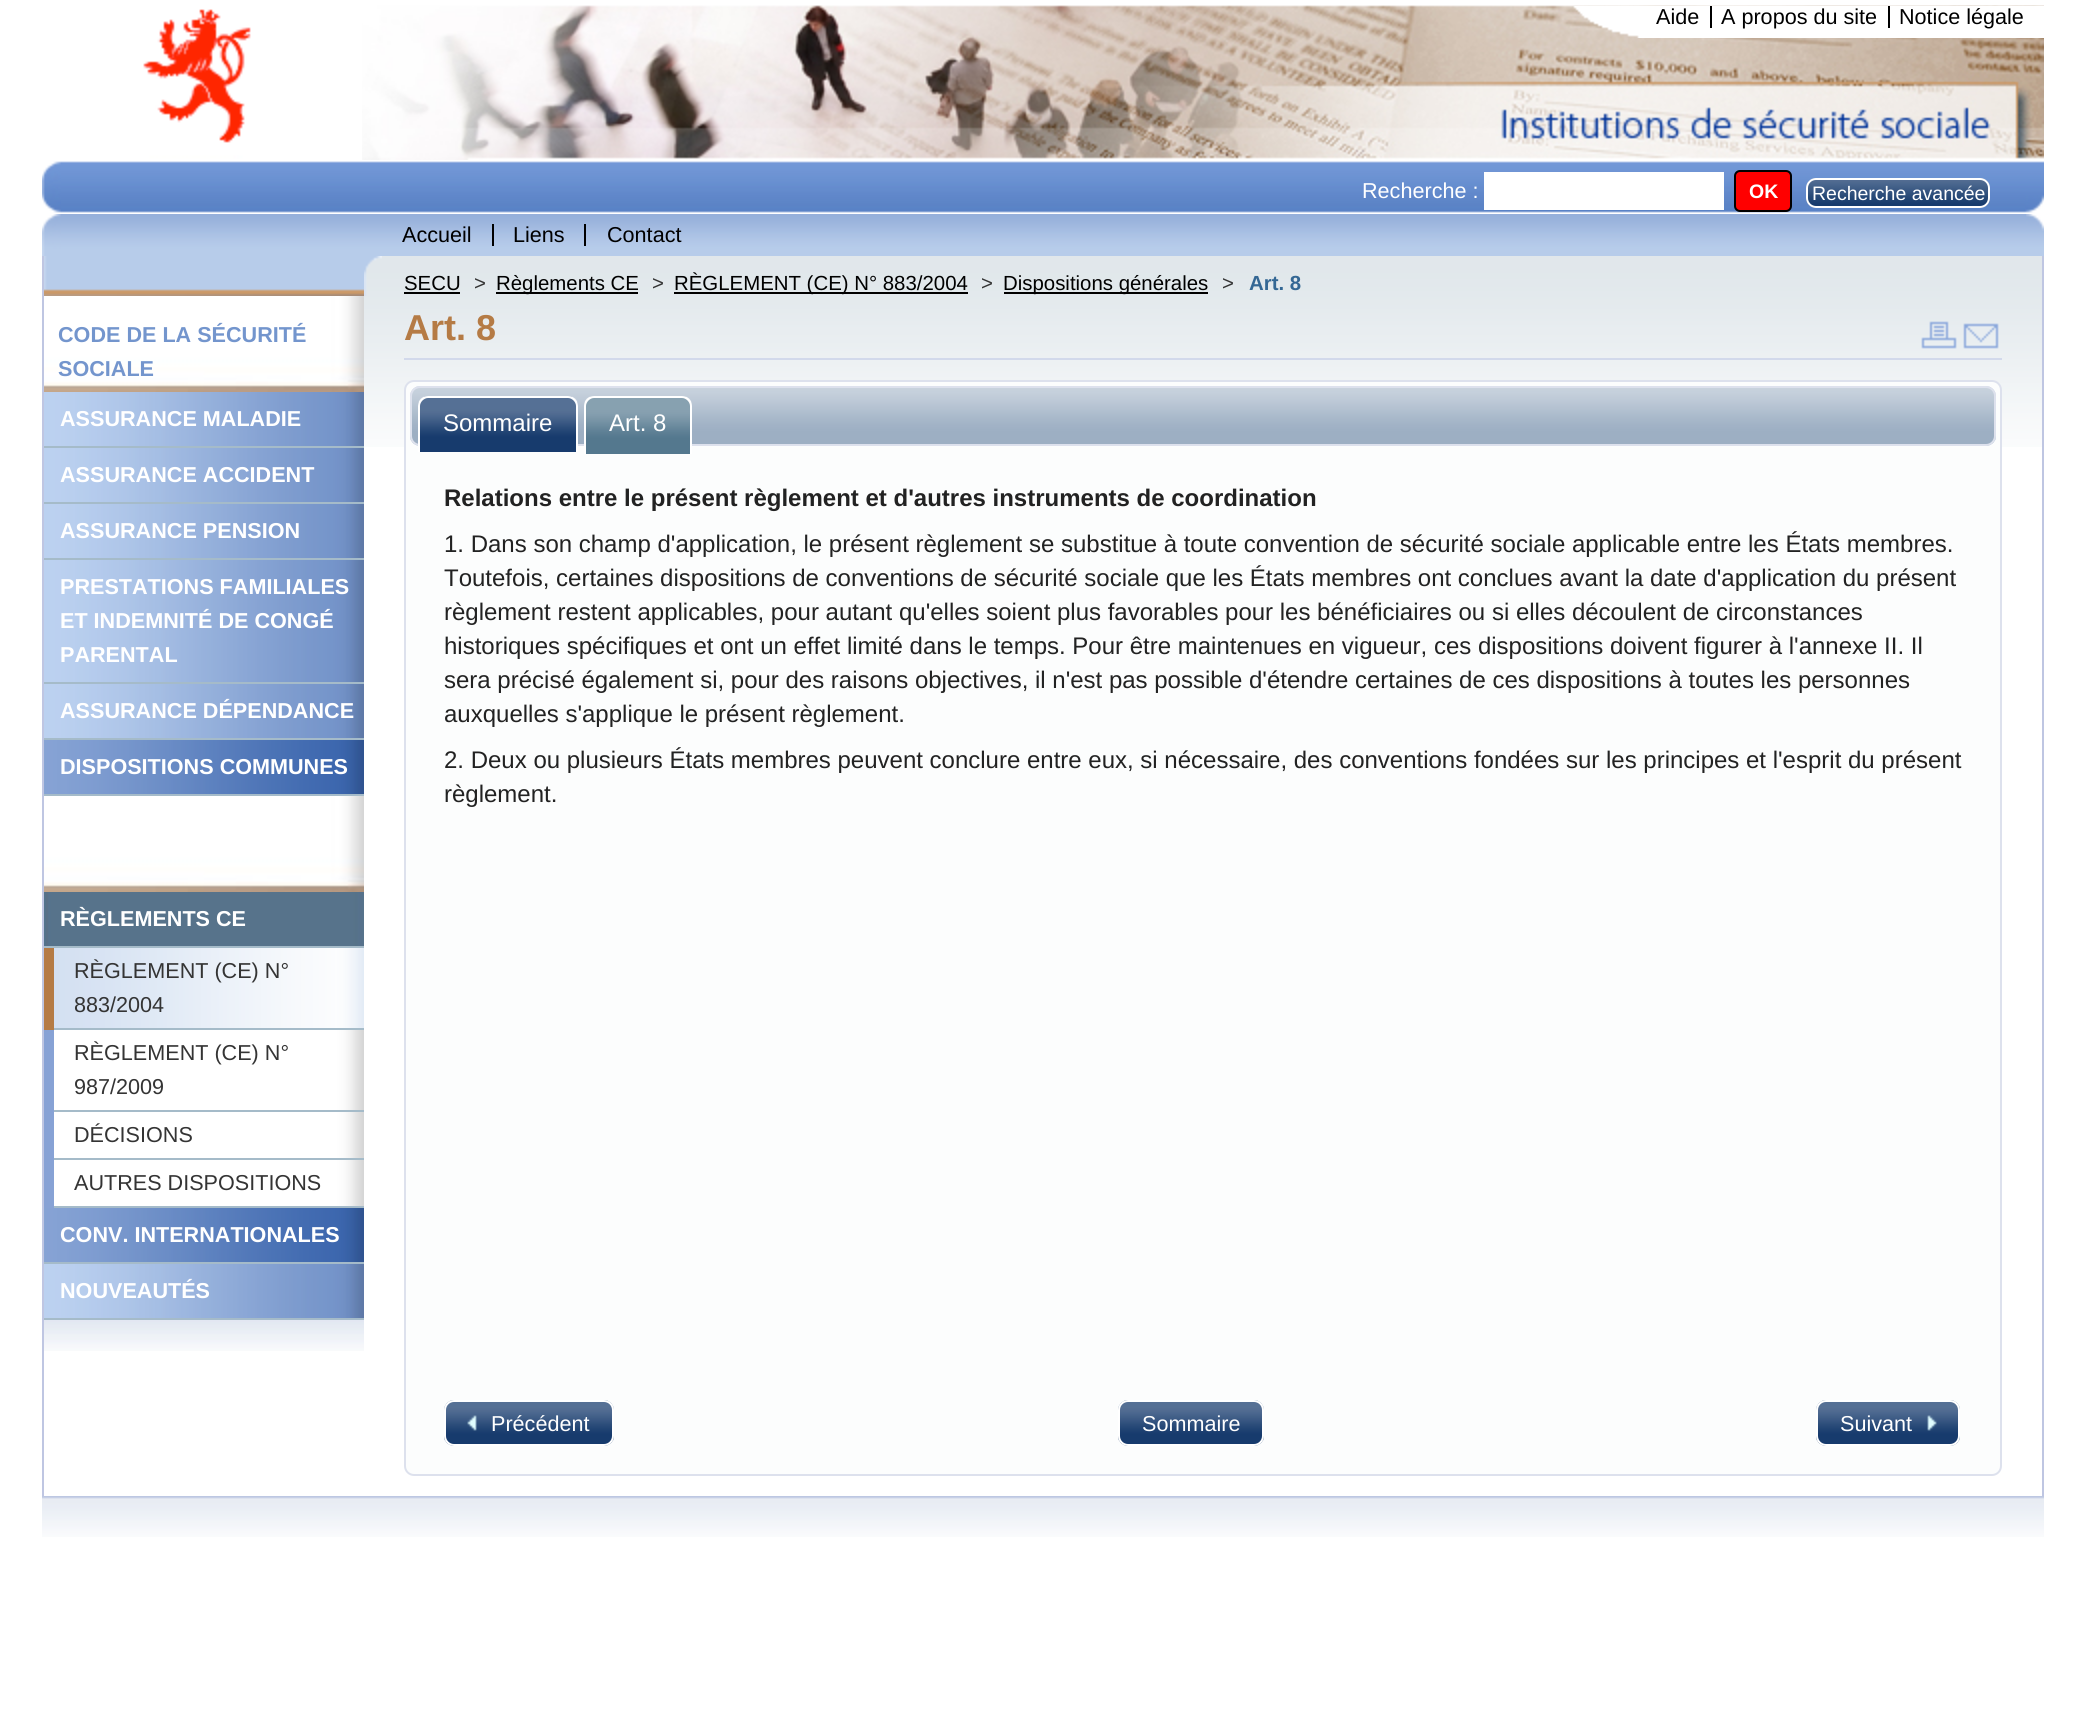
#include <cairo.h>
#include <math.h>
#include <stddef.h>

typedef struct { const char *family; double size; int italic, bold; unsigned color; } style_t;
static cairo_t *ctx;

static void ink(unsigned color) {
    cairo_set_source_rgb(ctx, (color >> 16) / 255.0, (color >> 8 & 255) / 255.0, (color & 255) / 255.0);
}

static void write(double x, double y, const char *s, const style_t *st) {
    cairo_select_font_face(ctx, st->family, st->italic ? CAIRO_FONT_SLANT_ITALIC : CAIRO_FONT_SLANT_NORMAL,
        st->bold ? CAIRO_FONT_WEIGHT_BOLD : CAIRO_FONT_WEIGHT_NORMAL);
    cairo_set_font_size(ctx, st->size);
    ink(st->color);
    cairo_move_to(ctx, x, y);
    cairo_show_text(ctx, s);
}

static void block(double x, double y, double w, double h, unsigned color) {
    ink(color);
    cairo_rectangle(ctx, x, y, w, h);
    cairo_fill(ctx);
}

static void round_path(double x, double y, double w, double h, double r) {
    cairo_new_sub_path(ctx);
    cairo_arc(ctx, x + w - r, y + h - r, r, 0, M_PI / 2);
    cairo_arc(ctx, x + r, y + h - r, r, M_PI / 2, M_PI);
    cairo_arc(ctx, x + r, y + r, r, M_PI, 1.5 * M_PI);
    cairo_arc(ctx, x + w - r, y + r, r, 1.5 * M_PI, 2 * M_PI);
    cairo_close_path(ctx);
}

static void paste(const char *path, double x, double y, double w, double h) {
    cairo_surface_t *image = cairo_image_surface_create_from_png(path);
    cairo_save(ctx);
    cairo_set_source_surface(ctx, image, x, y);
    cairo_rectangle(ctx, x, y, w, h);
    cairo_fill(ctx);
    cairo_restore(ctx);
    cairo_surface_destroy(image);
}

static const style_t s1 = {"Liberation Sans", 21.6, 0, 0, 0x000000};
static const style_t s2 = {"Liberation Sans", 21.6, 0, 0, 0xffffff};
static const style_t s3 = {"Liberation Sans", 19.5, 0, 1, 0xffffff};
static const style_t s4 = {"Liberation Sans", 19.5, 0, 0, 0xffffff};
static const style_t s5 = {"Liberation Sans", 21.6, 0, 1, 0x7395cd};
static const style_t s6 = {"Liberation Sans", 21.6, 0, 1, 0xffffff};
static const style_t s7 = {"Liberation Sans", 21.6, 0, 0, 0x343434};
static const style_t s8 = {"Liberation Sans", 20.4, 0, 0, 0x000000};
static const style_t s9 = {"Liberation Sans", 20.4, 0, 0, 0x343434};
static const style_t s10 = {"Liberation Sans", 20.4, 0, 1, 0x346794};
static const style_t s11 = {"Liberation Sans", 36, 0, 1, 0xb57b45};
static const style_t s12 = {"Liberation Sans", 24, 0, 0, 0xffffff};
static const style_t s13 = {"Liberation Sans", 24, 0, 1, 0x222222};
static const style_t s14 = {"Liberation Sans", 24, 0, 0, 0x222222};

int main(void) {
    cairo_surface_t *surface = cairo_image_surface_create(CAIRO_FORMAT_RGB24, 2086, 1723);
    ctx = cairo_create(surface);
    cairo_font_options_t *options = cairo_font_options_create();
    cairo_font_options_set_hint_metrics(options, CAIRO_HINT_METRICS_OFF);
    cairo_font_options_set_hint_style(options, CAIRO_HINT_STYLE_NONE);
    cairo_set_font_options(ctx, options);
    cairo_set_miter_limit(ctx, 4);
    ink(0xffffff);
    cairo_paint(ctx);
    paste("pic1.png", 357, 5, 1687, 155);
    paste("pic2.png", 143, 9, 219, 151);
    paste("pic3.png", 1573, 6, 83, 32);
    block(1656, 6, 388, 32, 0xffffff);
    block(1710, 6, 2, 22, 0x000000);
    write(1656, 24, "Aide", &s1);
    block(1888, 6, 2, 22, 0x000000);
    write(1721, 24, "A propos du site", &s1);
    write(1899, 24, "Notice légale", &s1);
    paste("pic4.png", 61, 161, 1983, 52);
    paste("pic5.png", 42, 161, 19, 52);
    write(1362, 198, "Recherche :", &s2);
    block(1484, 172, 240, 38, 0xffffff);
    ink(0xff0000);
    round_path(1735, 171, 56, 40, 5);
    cairo_fill_preserve(ctx);
    ink(0x000000);
    cairo_stroke(ctx);
    write(1749, 198, "OK", &s3);
    paste("pic6.png", 1806, 178, 184, 30);
    round_path(1807, 179, 182, 28, 9);
    cairo_stroke(ctx);
    write(1812, 200, "Recherche avancée", &s4);
    paste("pic7.png", 2025, 195, 19, 18);
    paste("pic8.png", 61, 214, 1983, 42);
    paste("pic9.png", 42, 214, 19, 42);
    paste("pic10.png", 2026, 214, 18, 17);
    block(492, 224, 2, 22, 0x000000);
    write(402, 242, "Accueil", &s1);
    block(584, 224, 2, 22, 0x000000);
    write(513, 242, "Liens", &s1);
    write(607, 242, "Contact", &s1);
    paste("pic11.png", 364, 256, 1678, 191);
    block(2042, 256, 2, 1240, 0xbfc6e2);
    block(42, 256, 2, 1240, 0xbfc6e2);
    paste("pic12.png", 44, 256, 320, 40);
    paste("pic13.png", 364, 256, 18, 40);
    paste("pic14.png", 44, 1320, 320, 31);
    paste("pic15.png", 44, 296, 320, 96);
    write(58, 342, "CODE DE LA SÉCURITÉ", &s5);
    write(58, 376, "SOCIALE", &s5);
    paste("pic16.png", 44, 392, 320, 54);
    block(44, 446, 320, 2, 0xa5bbc9);
    write(60, 426, "ASSURANCE MALADIE", &s6);
    paste("pic16.png", 44, 448, 320, 54);
    block(44, 502, 320, 2, 0xa5bbc9);
    write(60, 482, "ASSURANCE ACCIDENT", &s6);
    paste("pic16.png", 44, 504, 320, 54);
    block(44, 558, 320, 2, 0xa5bbc9);
    write(60, 538, "ASSURANCE PENSION", &s6);
    paste("pic17.png", 44, 560, 320, 122);
    block(44, 682, 320, 2, 0xa5bbc9);
    write(60, 594, "PRESTATIONS FAMILIALES", &s6);
    write(60, 628, "ET INDEMNITÉ DE CONGÉ", &s6);
    write(60, 662, "PARENTAL", &s6);
    paste("pic16.png", 44, 684, 320, 54);
    block(44, 738, 320, 2, 0xa5bbc9);
    write(60, 718, "ASSURANCE DÉPENDANCE", &s6);
    paste("pic18.png", 44, 740, 320, 54);
    block(44, 794, 320, 2, 0xa5bbc9);
    write(60, 774, "DISPOSITIONS COMMUNES", &s6);
    paste("pic15.png", 44, 796, 320, 96);
    paste("pic19.png", 44, 892, 320, 54);
    block(44, 946, 320, 2, 0xa5bbc9);
    write(60, 926, "RÈGLEMENTS CE", &s6);
    block(44, 948, 10, 82, 0xb57b45);
    paste("pic20.png", 54, 948, 310, 80);
    block(54, 1028, 310, 2, 0xa5bbc9);
    write(74, 978, "RÈGLEMENT (CE) N°", &s7);
    write(74, 1012, "883/2004", &s7);
    block(44, 1030, 10, 178, 0x87a2d5);
    paste("pic21.png", 54, 1030, 310, 80);
    block(54, 1110, 310, 2, 0xa5bbc9);
    write(74, 1060, "RÈGLEMENT (CE) N°", &s7);
    write(74, 1094, "987/2009", &s7);
    paste("pic22.png", 54, 1112, 310, 46);
    block(54, 1158, 310, 2, 0xa5bbc9);
    write(74, 1142, "DÉCISIONS", &s7);
    paste("pic22.png", 54, 1160, 310, 46);
    block(54, 1206, 310, 2, 0xa5bbc9);
    write(74, 1190, "AUTRES DISPOSITIONS", &s7);
    paste("pic18.png", 44, 1208, 320, 54);
    block(44, 1262, 320, 2, 0xa5bbc9);
    write(60, 1242, "CONV. INTERNATIONALES", &s6);
    paste("pic16.png", 44, 1264, 320, 54);
    block(44, 1318, 320, 2, 0xa5bbc9);
    write(60, 1298, "NOUVEAUTÉS", &s6);
    write(404, 290, "SECU", &s8);
    block(404, 292, 56, 2, 0x000000);
    write(474, 290, ">", &s9);
    block(496, 292, 142, 2, 0x000000);
    write(496, 290, "Règlements CE", &s8);
    write(652, 290, ">", &s9);
    block(674, 292, 294, 2, 0x000000);
    write(674, 290, "RÈGLEMENT (CE) N° 883/2004", &s8);
    write(981, 290, ">", &s9);
    block(1004, 292, 204, 2, 0x000000);
    write(1003, 290, "Dispositions générales", &s8);
    write(1222, 290, ">", &s9);
    write(1249, 290, "Art. 8", &s10);
    block(404, 358, 1598, 2, 0xd2d9eb);
    write(404, 340, "Art. 8", &s11);
    paste("pic23.png", 1921, 321, 36, 28);
    paste("pic24.png", 1963, 323, 36, 26);
    ink(0xfcfdfd);
    round_path(405, 381, 1596, 1094, 9);
    cairo_fill_preserve(ctx);
    ink(0xdde1ed);
    cairo_stroke(ctx);
    paste("pic25.png", 410, 386, 1586, 60);
    round_path(411, 387, 1584, 58, 9);
    cairo_stroke(ctx);
    paste("pic26.png", 418, 396, 160, 56);
    ink(0xffffff);
    cairo_set_fill_rule(ctx, CAIRO_FILL_RULE_EVEN_ODD);
    cairo_new_path(ctx);
    cairo_move_to(ctx, 428, 396);
    cairo_line_to(ctx, 568, 396);
    cairo_curve_to(ctx, 574, 396, 578, 400, 578, 406);
    cairo_line_to(ctx, 578, 452);
    cairo_line_to(ctx, 418, 452);
    cairo_line_to(ctx, 418, 406);
    cairo_curve_to(ctx, 418, 400, 422, 396, 428, 396);
    cairo_close_path(ctx);
    cairo_move_to(ctx, 428, 398);
    cairo_line_to(ctx, 568, 398);
    cairo_curve_to(ctx, 572, 398, 576, 402, 576, 406);
    cairo_line_to(ctx, 576, 452);
    cairo_line_to(ctx, 420, 452);
    cairo_line_to(ctx, 420, 406);
    cairo_curve_to(ctx, 420, 402, 424, 398, 428, 398);
    cairo_close_path(ctx);
    cairo_fill(ctx);
    write(443, 431, "Sommaire", &s12);
    paste("pic27.png", 584, 396, 108, 58);
    cairo_new_path(ctx);
    cairo_move_to(ctx, 594, 396);
    cairo_line_to(ctx, 682, 396);
    cairo_curve_to(ctx, 688, 396, 692, 400, 692, 406);
    cairo_line_to(ctx, 692, 454);
    cairo_line_to(ctx, 584, 454);
    cairo_line_to(ctx, 584, 406);
    cairo_curve_to(ctx, 584, 400, 588, 396, 594, 396);
    cairo_close_path(ctx);
    cairo_move_to(ctx, 594, 398);
    cairo_line_to(ctx, 682, 398);
    cairo_curve_to(ctx, 686, 398, 690, 402, 690, 406);
    cairo_line_to(ctx, 690, 454);
    cairo_line_to(ctx, 586, 454);
    cairo_line_to(ctx, 586, 406);
    cairo_curve_to(ctx, 586, 402, 590, 398, 594, 398);
    cairo_close_path(ctx);
    cairo_fill(ctx);
    write(609, 431, "Art. 8", &s12);
    write(444, 506, "Relations entre le présent règlement et d'autres instruments de coordination", &s13);
    write(444, 552, "1. Dans son champ d'application, le présent règlement se substitue à toute convention de sécurité sociale applicable entre les États membres.", &s14);
    write(444, 586, "Toutefois, certaines dispositions de conventions de sécurité sociale que les États membres ont conclues avant la date d'application du présent", &s14);
    write(444, 620, "règlement restent applicables, pour autant qu'elles soient plus favorables pour les bénéficiaires ou si elles découlent de circonstances", &s14);
    write(444, 654, "historiques spécifiques et ont un effet limité dans le temps. Pour être maintenues en vigueur, ces dispositions doivent figurer à l'annexe II. Il", &s14);
    write(444, 688, "sera précisé également si, pour des raisons objectives, il n'est pas possible d'étendre certaines de ces dispositions à toutes les personnes", &s14);
    write(444, 722, "auxquelles s'applique le présent règlement.", &s14);
    write(444, 768, "2. Deux ou plusieurs États membres peuvent conclure entre eux, si nécessaire, des conventions fondées sur les principes et l'esprit du présent", &s14);
    write(444, 802, "règlement.", &s14);
    paste("pic28.png", 444, 1400, 170, 46);
    round_path(445, 1401, 168, 44, 9);
    ink(0xffffff);
    cairo_stroke(ctx);
    paste("pic29.png", 467, 1415, 10, 16);
    write(491, 1431, "Précédent", &s2);
    paste("pic30.png", 1118, 1400, 146, 46);
    round_path(1119, 1401, 144, 44, 9);
    cairo_stroke(ctx);
    write(1142, 1431, "Sommaire", &s2);
    paste("pic31.png", 1816, 1400, 144, 46);
    round_path(1817, 1401, 142, 44, 9);
    cairo_stroke(ctx);
    write(1840, 1431, "Suivant", &s2);
    paste("pic32.png", 1927, 1415, 10, 16);
    paste("pic33.png", 42, 1496, 2002, 41);
    cairo_surface_write_to_png(surface, "screenshot.png");
    cairo_font_options_destroy(options);
    cairo_destroy(ctx);
    cairo_surface_destroy(surface);
    return 0;
}
